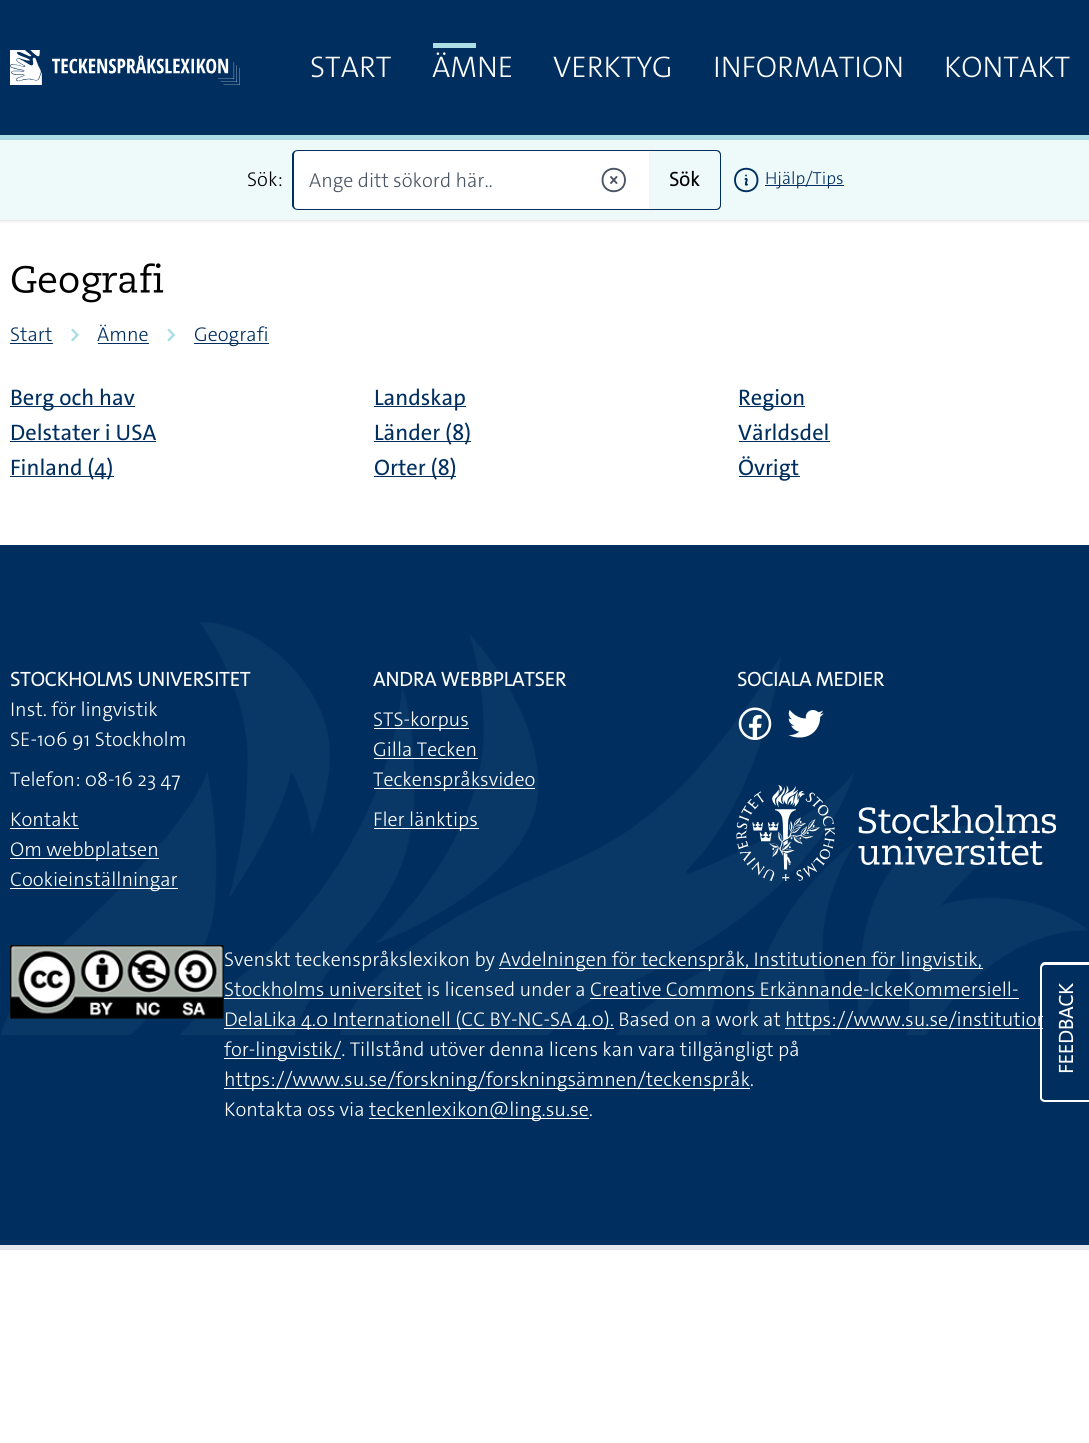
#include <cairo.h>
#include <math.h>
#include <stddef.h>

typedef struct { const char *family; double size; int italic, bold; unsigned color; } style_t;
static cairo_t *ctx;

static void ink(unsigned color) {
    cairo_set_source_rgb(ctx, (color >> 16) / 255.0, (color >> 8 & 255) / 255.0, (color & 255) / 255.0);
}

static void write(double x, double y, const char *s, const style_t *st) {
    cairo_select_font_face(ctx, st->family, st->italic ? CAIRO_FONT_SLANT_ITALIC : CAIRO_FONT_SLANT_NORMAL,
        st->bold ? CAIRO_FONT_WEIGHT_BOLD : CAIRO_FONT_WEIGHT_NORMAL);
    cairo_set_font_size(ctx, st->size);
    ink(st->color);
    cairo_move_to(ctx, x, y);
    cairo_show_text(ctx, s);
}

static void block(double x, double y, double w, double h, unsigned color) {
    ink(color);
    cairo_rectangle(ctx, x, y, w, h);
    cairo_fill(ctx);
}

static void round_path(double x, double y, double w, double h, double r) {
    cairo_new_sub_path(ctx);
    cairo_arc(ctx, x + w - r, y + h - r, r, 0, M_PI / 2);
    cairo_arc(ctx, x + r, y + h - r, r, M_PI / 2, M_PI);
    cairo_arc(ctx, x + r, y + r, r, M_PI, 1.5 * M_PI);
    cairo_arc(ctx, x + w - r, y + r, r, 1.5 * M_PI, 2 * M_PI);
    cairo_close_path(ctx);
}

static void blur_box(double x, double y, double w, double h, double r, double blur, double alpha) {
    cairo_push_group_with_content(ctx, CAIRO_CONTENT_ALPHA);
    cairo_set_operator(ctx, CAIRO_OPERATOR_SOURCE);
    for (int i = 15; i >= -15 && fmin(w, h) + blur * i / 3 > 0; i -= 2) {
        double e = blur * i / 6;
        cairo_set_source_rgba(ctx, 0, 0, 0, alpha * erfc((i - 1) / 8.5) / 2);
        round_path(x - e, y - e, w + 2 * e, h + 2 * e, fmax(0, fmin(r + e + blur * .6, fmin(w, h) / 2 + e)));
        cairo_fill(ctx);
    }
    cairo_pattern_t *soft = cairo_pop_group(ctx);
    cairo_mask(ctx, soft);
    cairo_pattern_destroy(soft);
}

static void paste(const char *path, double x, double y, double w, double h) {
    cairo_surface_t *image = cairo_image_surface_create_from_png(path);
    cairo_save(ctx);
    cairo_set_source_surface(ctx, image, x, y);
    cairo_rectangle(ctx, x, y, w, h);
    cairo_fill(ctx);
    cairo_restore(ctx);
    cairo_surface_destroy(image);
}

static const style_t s1 = {"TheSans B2 Light", 30, 0, 0, 0xffffff};
static const style_t s2 = {"TheSans B2 Light", 20, 0, 0, 0x000000};
static const style_t s3 = {"TheSans B2 Light", 20, 0, 0, 0x4b5563};
static const style_t s4 = {"TheSans B2", 20, 0, 1, 0x000000};
static const style_t s5 = {"TheSans B2 Light", 17.5, 0, 0, 0x002f5f};
static const style_t s6 = {"TheSans B2 Light", 20, 0, 0, 0x002f5f};
static const style_t s7 = {"TheSans B2 Medium", 22.5, 0, 0, 0x002f5f};
static const style_t s8 = {"TheSans B2", 20, 0, 1, 0xffffff};
static const style_t s9 = {"TheSans B2 Light", 20, 0, 0, 0xffffff};

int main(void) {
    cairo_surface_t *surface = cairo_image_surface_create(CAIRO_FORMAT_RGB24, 1089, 1443);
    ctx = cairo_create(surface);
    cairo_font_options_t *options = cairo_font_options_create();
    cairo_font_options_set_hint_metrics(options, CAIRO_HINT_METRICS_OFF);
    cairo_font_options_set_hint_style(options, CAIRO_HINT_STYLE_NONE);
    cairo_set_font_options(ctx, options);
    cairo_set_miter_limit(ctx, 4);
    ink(0xffffff);
    cairo_paint(ctx);
    block(0, 0, 1089, 135, 0x002f5f);
    block(0, 135, 1089, 5, 0xacdee6);
    paste("pic1.png", 10, 50, 230, 35);
    write(310, 77, "START", &s1);
    block(433, 43, 43, 5, 0xacdee6);
    write(432, 77, "ÄMNE", &s1);
    write(553, 77, "VERKTYG", &s1);
    write(713, 77, "INFORMATION", &s1);
    write(944, 77, "KONTAKT", &s1);
    ink(0x000000);
    blur_box(1, 143, 1088, 77, 0, 1, 0.1);
    blur_box(0, 141, 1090, 80, 0, 2, 0.1);
    block(0, 140, 1089, 80, 0xeef9fa);
    write(247, 186, "Sök:", &s2);
    ink(0xffffff);
    cairo_new_path(ctx);
    cairo_move_to(ctx, 298, 151);
    cairo_line_to(ctx, 649, 151);
    cairo_line_to(ctx, 649, 209);
    cairo_line_to(ctx, 298, 209);
    cairo_curve_to(ctx, 296, 209, 294, 207, 294, 205);
    cairo_line_to(ctx, 294, 155);
    cairo_curve_to(ctx, 294, 153, 296, 151, 298, 151);
    cairo_close_path(ctx);
    cairo_fill(ctx);
    ink(0x002f5f);
    cairo_set_fill_rule(ctx, CAIRO_FILL_RULE_EVEN_ODD);
    cairo_new_path(ctx);
    cairo_move_to(ctx, 298, 150);
    cairo_line_to(ctx, 649, 150);
    cairo_line_to(ctx, 649, 210);
    cairo_line_to(ctx, 298, 210);
    cairo_curve_to(ctx, 295, 210, 292, 208, 292, 205);
    cairo_line_to(ctx, 292, 155);
    cairo_curve_to(ctx, 292, 152, 295, 150, 298, 150);
    cairo_close_path(ctx);
    cairo_move_to(ctx, 298, 151);
    cairo_line_to(ctx, 649, 151);
    cairo_line_to(ctx, 649, 209);
    cairo_line_to(ctx, 298, 209);
    cairo_curve_to(ctx, 295, 209, 294, 207, 294, 205);
    cairo_line_to(ctx, 294, 155);
    cairo_curve_to(ctx, 294, 153, 295, 151, 298, 151);
    cairo_close_path(ctx);
    cairo_fill(ctx);
    write(309, 187, "Ange ditt sökord här..", &s3);
    cairo_new_path(ctx);
    cairo_move_to(ctx, 611, 177);
    cairo_line_to(ctx, 616.5, 183);
    cairo_move_to(ctx, 616.5, 177);
    cairo_line_to(ctx, 611, 183);
    cairo_move_to(ctx, 625, 180);
    cairo_curve_to(ctx, 625, 195, 602.5, 195, 602.5, 180);
    cairo_curve_to(ctx, 602.5, 165, 625, 165, 625, 180);
    cairo_close_path(ctx);
    cairo_set_line_width(ctx, 1.9);
    cairo_set_line_cap(ctx, CAIRO_LINE_CAP_ROUND);
    cairo_set_line_join(ctx, CAIRO_LINE_JOIN_ROUND);
    cairo_stroke(ctx);
    ink(0x002f5f);
    cairo_new_path(ctx);
    cairo_move_to(ctx, 649, 150);
    cairo_line_to(ctx, 716, 150);
    cairo_curve_to(ctx, 719, 150, 721, 152, 721, 155);
    cairo_line_to(ctx, 721, 205);
    cairo_curve_to(ctx, 721, 208, 719, 210, 716, 210);
    cairo_line_to(ctx, 649, 210);
    cairo_close_path(ctx);
    cairo_move_to(ctx, 649, 151);
    cairo_line_to(ctx, 716, 151);
    cairo_curve_to(ctx, 718, 151, 720, 153, 720, 155);
    cairo_line_to(ctx, 720, 205);
    cairo_curve_to(ctx, 720, 207, 718, 209, 716, 209);
    cairo_line_to(ctx, 649, 209);
    cairo_close_path(ctx);
    cairo_fill(ctx);
    write(669, 186, "Sök", &s4);
    cairo_new_path(ctx);
    cairo_move_to(ctx, 745.5, 179);
    cairo_curve_to(ctx, 749, 177.5, 743.5, 186.5, 747, 184.5);
    cairo_move_to(ctx, 757.5, 180);
    cairo_curve_to(ctx, 757.5, 195, 735, 195, 735, 180);
    cairo_curve_to(ctx, 735, 165, 757.5, 165, 757.5, 180);
    cairo_close_path(ctx);
    cairo_move_to(ctx, 746, 175.5);
    cairo_line_to(ctx, 746, 175.5);
    cairo_close_path(ctx);
    ink(0x002f5f);
    cairo_stroke(ctx);
    block(765, 185, 79, 1, 0x002f5f);
    write(765, 184, "Hjälp/Tips", &s5);
    paste("pic2.png", 11, 263, 153, 40);
    write(10, 341, "Start", &s6);
    block(10, 343, 43, 1, 0x002f5f);
    paste("pic3.png", 71, 328, 8, 14);
    write(97, 341, "Ämne", &s6);
    block(98, 343, 51, 1, 0x002f5f);
    paste("pic4.png", 167, 328, 8, 14);
    block(194, 343, 75, 1, 0x002f5f);
    write(194, 341, "Geografi", &s6);
    block(10, 406, 125, 1, 0x002f5f);
    write(10, 405, "Berg och hav", &s7);
    block(374, 406, 92, 1, 0x002f5f);
    write(374, 405, "Landskap", &s7);
    block(739, 406, 66, 1, 0x002f5f);
    write(738, 405, "Region", &s7);
    write(10, 440, "Delstater i USA", &s7);
    block(10, 441, 146, 1, 0x002f5f);
    block(374, 441, 97, 1, 0x002f5f);
    write(374, 440, "Länder (8)", &s7);
    write(738, 440, "Världsdel", &s7);
    block(739, 441, 91, 1, 0x002f5f);
    block(10, 476, 104, 1, 0x002f5f);
    write(10, 475, "Finland (4)", &s7);
    block(374, 476, 82, 1, 0x002f5f);
    write(374, 475, "Orter (8)", &s7);
    block(739, 476, 61, 1, 0x002f5f);
    write(738, 475, "Övrigt", &s7);
    block(0, 545, 1089, 700, 0x002f5f);
    paste("pic5.png", 1, 622, 1087, 413);
    block(0, 1245, 1089, 5, 0xe5e7eb);
    write(10, 686, "STOCKHOLMS UNIVERSITET", &s8);
    write(10, 716, "Inst. för lingvistik", &s9);
    write(10, 746, "SE-106 91 Stockholm", &s9);
    write(10, 786, "Telefon: 08-16 23 47", &s9);
    write(10, 826, "Kontakt", &s9);
    block(10, 828, 69, 1, 0xffffff);
    block(10, 858, 149, 1, 0xffffff);
    write(10, 856, "Om webbplatsen", &s9);
    block(10, 888, 168, 1, 0xffffff);
    write(10, 886, "Cookieinställningar", &s9);
    write(373, 686, "ANDRA WEBBPLATSER", &s8);
    block(374, 728, 95, 1, 0xffffff);
    write(373, 726, "STS-korpus", &s9);
    write(373, 756, "Gilla Tecken", &s9);
    block(374, 758, 104, 1, 0xffffff);
    block(374, 788, 161, 1, 0xffffff);
    write(373, 786, "Teckenspråksvideo", &s9);
    block(374, 828, 105, 1, 0xffffff);
    write(373, 826, "Fler länktips", &s9);
    write(737, 686, "SOCIALA MEDIER", &s8);
    paste("pic6.png", 738, 707, 34, 33);
    paste("pic7.png", 788, 710, 36, 28);
    paste("pic8.png", 736, 785, 320, 96);
    paste("pic9.png", 10, 945, 214, 74);
    write(224, 966, "Svenskt teckenspråkslexikon by", &s9);
    block(499, 968, 484, 1, 0xffffff);
    write(499, 966, "Avdelningen för teckenspråk, Institutionen för lingvistik,", &s9);
    write(224, 996, "Stockholms universitet is licensed under a Creative Commons Erkännande-IckeKommersiell-", &s9);
    block(224, 998, 199, 1, 0xffffff);
    block(224, 1028, 390, 1, 0xffffff);
    write(224, 1026, "DelaLika 4.0 Internationell (CC BY-NC-SA 4.0). Based on a work at", &s9);
    block(590, 998, 429, 1, 0xffffff);
    block(785, 1028, 258, 1, 0xffffff);
    write(785, 1026, "https://www.su.se/institution", &s9);
    block(224, 1058, 117, 1, 0xffffff);
    write(224, 1056, "for-lingvistik/. Tillstånd utöver denna licens kan vara tillgängligt på", &s9);
    block(224, 1088, 526, 1, 0xffffff);
    write(224, 1086, "https://www.su.se/forskning/forskningsämnen/teckenspråk.", &s9);
    write(224, 1116, "Kontakta oss via", &s9);
    block(369, 1118, 220, 1, 0xffffff);
    write(369, 1116, "teckenlexikon@ling.su.se.", &s9);
    ink(0x002f5f);
    cairo_new_path(ctx);
    cairo_move_to(ctx, 1045.5, 965);
    cairo_line_to(ctx, 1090, 965);
    cairo_line_to(ctx, 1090, 1100);
    cairo_line_to(ctx, 1045.5, 1100);
    cairo_curve_to(ctx, 1044, 1100, 1043, 1099, 1043, 1097.5);
    cairo_line_to(ctx, 1043, 967.5);
    cairo_curve_to(ctx, 1043, 966, 1044, 965, 1045.5, 965);
    cairo_close_path(ctx);
    cairo_fill(ctx);
    ink(0xffffff);
    cairo_new_path(ctx);
    cairo_move_to(ctx, 1045, 962);
    cairo_line_to(ctx, 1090, 962);
    cairo_line_to(ctx, 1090, 1102);
    cairo_line_to(ctx, 1045, 1102);
    cairo_curve_to(ctx, 1042, 1102, 1040, 1100, 1040, 1098);
    cairo_line_to(ctx, 1040, 968);
    cairo_curve_to(ctx, 1040, 965, 1042, 962, 1045, 962);
    cairo_close_path(ctx);
    cairo_move_to(ctx, 1045, 965);
    cairo_line_to(ctx, 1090, 965);
    cairo_line_to(ctx, 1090, 1100);
    cairo_line_to(ctx, 1045, 1100);
    cairo_curve_to(ctx, 1044, 1100, 1042, 1099, 1042, 1098);
    cairo_line_to(ctx, 1042, 968);
    cairo_curve_to(ctx, 1042, 966, 1044, 965, 1045, 965);
    cairo_close_path(ctx);
    cairo_fill(ctx);
    cairo_save(ctx);
    cairo_translate(ctx, 1073, 1074);
    cairo_rotate(ctx, -90 * M_PI / 180);
    write(0, 0, "FEEDBACK", &s8);
    cairo_restore(ctx);
    cairo_surface_write_to_png(surface, "screenshot.png");
    cairo_font_options_destroy(options);
    cairo_destroy(ctx);
    cairo_surface_destroy(surface);
    return 0;
}
